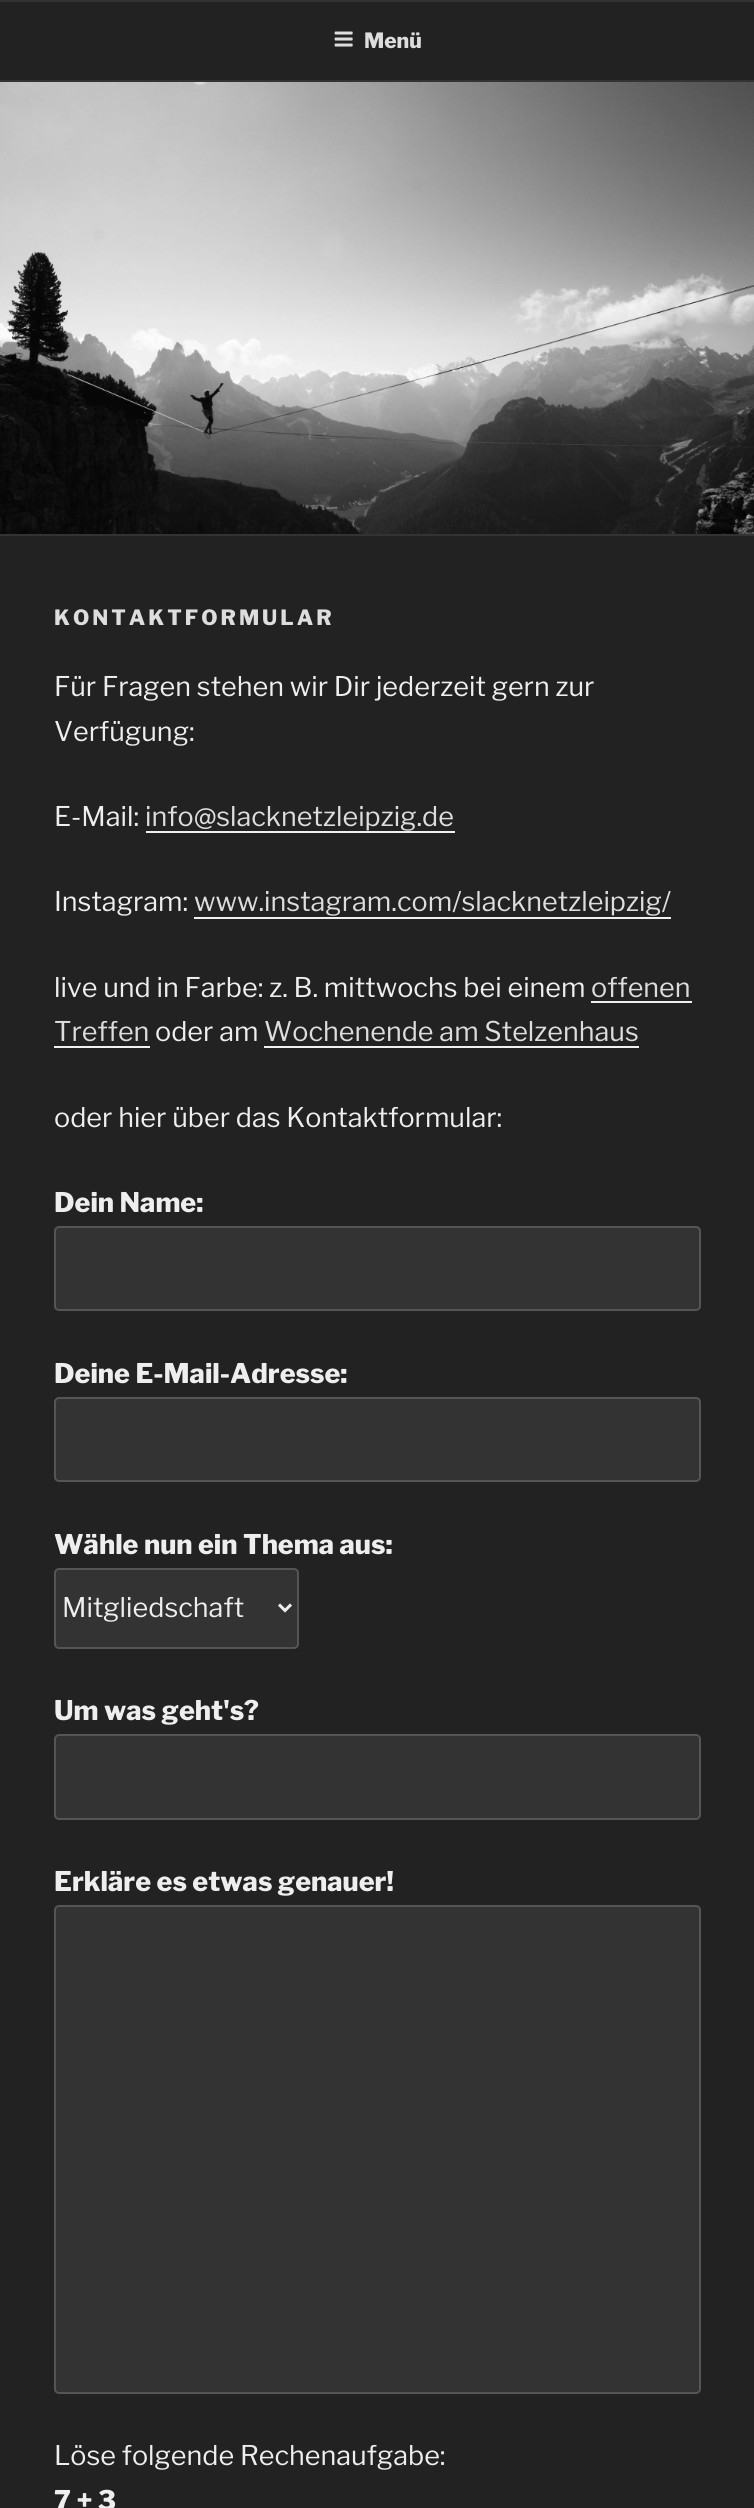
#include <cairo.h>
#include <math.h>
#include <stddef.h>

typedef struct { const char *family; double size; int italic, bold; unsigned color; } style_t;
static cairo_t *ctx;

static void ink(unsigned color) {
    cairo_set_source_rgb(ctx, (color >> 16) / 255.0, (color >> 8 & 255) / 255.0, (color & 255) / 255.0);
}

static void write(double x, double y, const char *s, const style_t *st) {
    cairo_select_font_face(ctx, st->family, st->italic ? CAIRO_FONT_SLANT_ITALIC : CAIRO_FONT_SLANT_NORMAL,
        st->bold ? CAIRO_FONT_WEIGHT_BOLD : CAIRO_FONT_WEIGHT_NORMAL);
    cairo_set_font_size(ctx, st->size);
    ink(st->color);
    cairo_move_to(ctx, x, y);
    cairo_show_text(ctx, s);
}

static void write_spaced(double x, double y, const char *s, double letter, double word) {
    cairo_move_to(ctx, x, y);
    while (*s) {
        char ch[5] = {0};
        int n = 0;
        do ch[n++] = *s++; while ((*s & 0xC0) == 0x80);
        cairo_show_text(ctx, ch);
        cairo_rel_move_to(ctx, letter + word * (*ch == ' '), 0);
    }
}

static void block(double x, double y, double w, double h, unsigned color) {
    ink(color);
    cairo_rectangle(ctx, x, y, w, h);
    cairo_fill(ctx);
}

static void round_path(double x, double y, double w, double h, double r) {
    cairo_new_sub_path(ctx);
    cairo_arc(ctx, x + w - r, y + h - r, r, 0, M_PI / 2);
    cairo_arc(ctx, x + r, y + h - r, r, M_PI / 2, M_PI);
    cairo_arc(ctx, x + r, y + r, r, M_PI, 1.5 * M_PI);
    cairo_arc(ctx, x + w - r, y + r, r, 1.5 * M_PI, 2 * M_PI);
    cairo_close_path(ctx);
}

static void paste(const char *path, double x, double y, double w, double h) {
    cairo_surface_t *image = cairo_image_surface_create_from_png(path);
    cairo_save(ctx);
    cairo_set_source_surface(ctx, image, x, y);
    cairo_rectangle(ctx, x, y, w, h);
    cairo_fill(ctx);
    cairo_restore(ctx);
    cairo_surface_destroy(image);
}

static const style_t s1 = {"Libre Franklin Thin", 21, 0, 0, 0xdddddd};
static const style_t s2 = {"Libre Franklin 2 Thin", 27, 0, 0, 0xeeeeee};
static const style_t s3 = {"Libre Franklin 2 Thin", 27, 0, 0, 0xdddddd};
static const style_t s4 = {"Libre Franklin Thin", 27, 0, 0, 0xeeeeee};

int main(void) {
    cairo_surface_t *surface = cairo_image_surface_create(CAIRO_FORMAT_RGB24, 754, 2508);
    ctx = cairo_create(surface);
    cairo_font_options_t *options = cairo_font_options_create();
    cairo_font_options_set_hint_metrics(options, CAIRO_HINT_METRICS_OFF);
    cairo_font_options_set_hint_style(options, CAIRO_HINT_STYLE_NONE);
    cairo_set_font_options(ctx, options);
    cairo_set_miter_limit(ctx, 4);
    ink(0x222222);
    cairo_paint(ctx);
    block(0, 0, 754, 2, 0x333333);
    block(0, 80, 754, 2, 0x333333);
    paste("pic1.png", 334, 31, 19, 16);
    write(364, 48, "Menü", &s1);
    block(0, 534, 754, 2, 0x333333);
    paste("pic2.png", 0, 82, 754, 452);
    ink(0xdddddd);
    write_spaced(54, 625, "KONTAKTFORMULAR", 3, 0);
    write(54, 696, "Für Fragen stehen wir Dir jederzeit gern zur", &s2);
    write(54, 741, "Verfügung:", &s2);
    write(54, 826, "E-Mail:", &s2);
    write(145, 826, "info@slacknetzleipzig.de", &s3);
    block(146, 831, 309, 2, 0xf0f0f0);
    write(54, 911, "Instagram:", &s2);
    write(194, 911, "www.instagram.com/slacknetzleipzig/", &s3);
    block(194, 917, 477, 2, 0xf0f0f0);
    write(54, 997, "live und in Farbe: z. B. mittwochs bei einem", &s2);
    write(591, 997, "offenen", &s3);
    block(591, 1001, 101, 2, 0xf0f0f0);
    write(54, 1041, "Treffen", &s3);
    block(54, 1046, 96, 2, 0xf0f0f0);
    write(155, 1041, "oder am", &s2);
    write(264, 1041, "Wochenende am Stelzenhaus", &s3);
    block(264, 1046, 375, 2, 0xf0f0f0);
    write(54, 1127, "oder hier über das Kontaktformular:", &s2);
    write(54, 1212, "Dein Name:", &s4);
    ink(0x333333);
    round_path(55, 1227, 645, 83, 4);
    cairo_fill_preserve(ctx);
    ink(0x555555);
    cairo_stroke(ctx);
    write(54, 1383, "Deine E-Mail-Adresse:", &s4);
    ink(0x333333);
    round_path(55, 1398, 645, 83, 4);
    cairo_fill_preserve(ctx);
    ink(0x555555);
    cairo_stroke(ctx);
    write(54, 1554, "Wähle nun ein Thema aus:", &s4);
    ink(0x333333);
    round_path(55, 1569, 243, 79, 4);
    cairo_fill_preserve(ctx);
    ink(0x555555);
    cairo_stroke(ctx);
    cairo_new_path(ctx);
    cairo_move_to(ctx, 279, 1604.5);
    cairo_line_to(ctx, 285, 1610.5);
    cairo_line_to(ctx, 291, 1604.5);
    ink(0xeeeeee);
    cairo_set_line_width(ctx, 3);
    cairo_stroke(ctx);
    write(62, 1617, "Mitgliedschaft", &s2);
    write(54, 1720, "Um was geht's?", &s4);
    ink(0x333333);
    round_path(55, 1735, 645, 84, 4);
    cairo_fill_preserve(ctx);
    ink(0x555555);
    cairo_set_line_width(ctx, 2);
    cairo_stroke(ctx);
    write(54, 1891, "Erkläre es etwas genauer!", &s4);
    ink(0x333333);
    round_path(55, 1906, 645, 487, 4);
    cairo_fill_preserve(ctx);
    ink(0x555555);
    cairo_stroke(ctx);
    write(54, 2465, "Löse folgende Rechenaufgabe:", &s2);
    write(54, 2510, "7 + 3", &s4);
    cairo_surface_write_to_png(surface, "screenshot.png");
    cairo_font_options_destroy(options);
    cairo_destroy(ctx);
    cairo_surface_destroy(surface);
    return 0;
}
